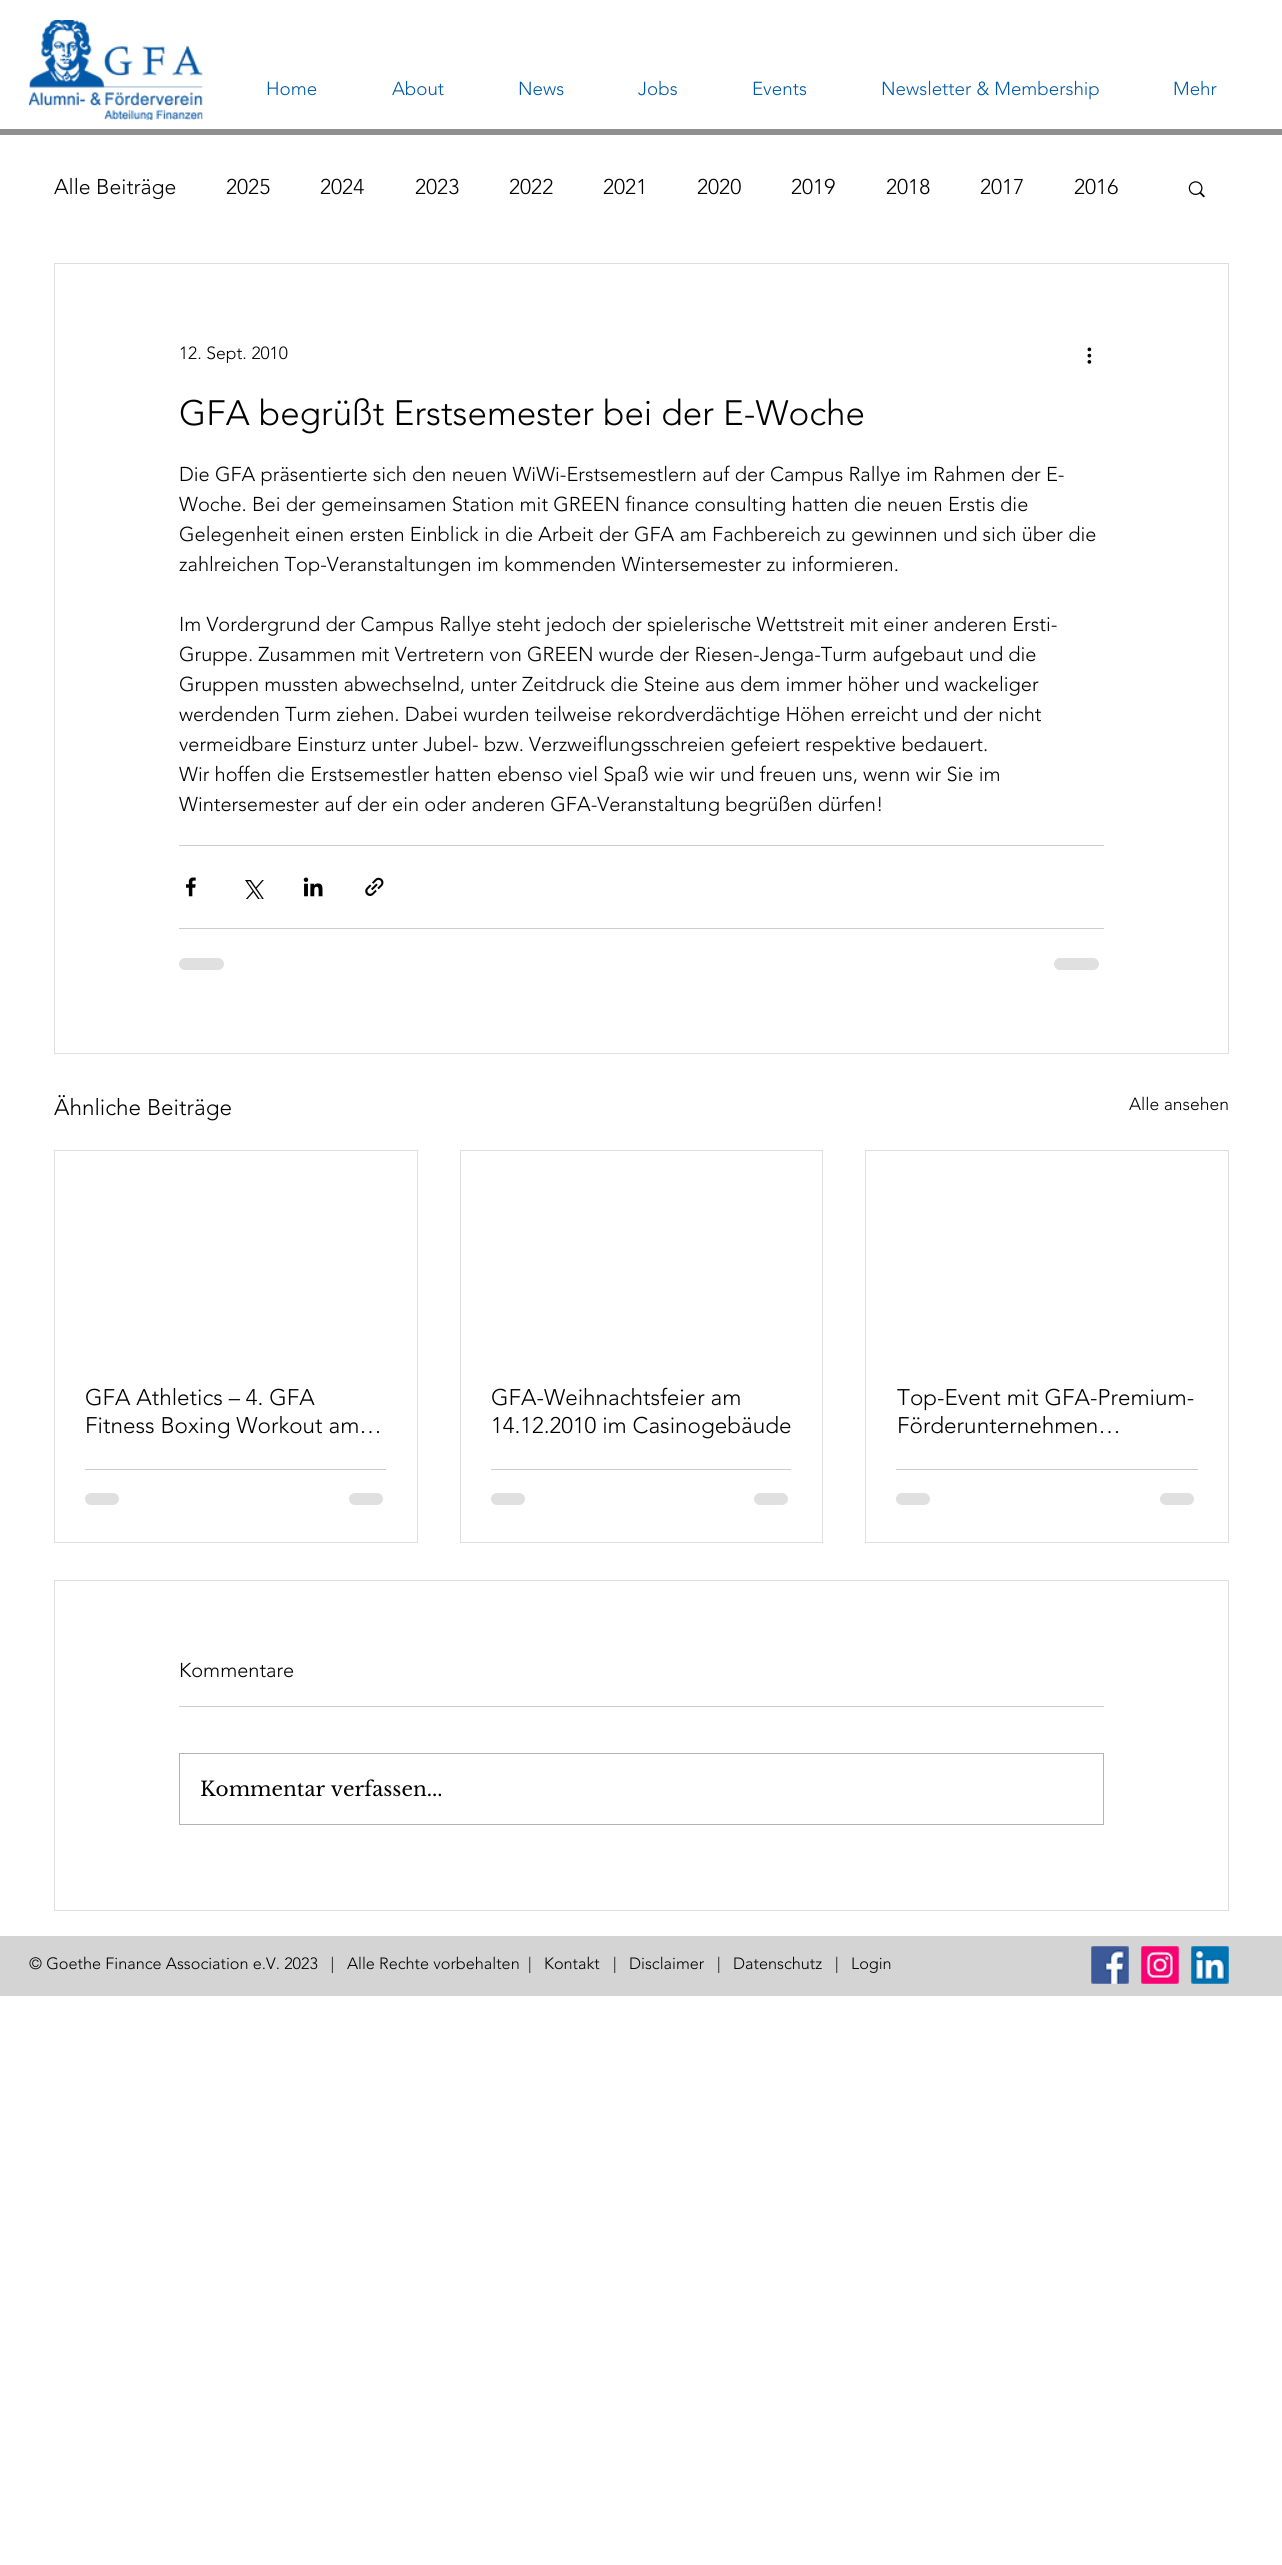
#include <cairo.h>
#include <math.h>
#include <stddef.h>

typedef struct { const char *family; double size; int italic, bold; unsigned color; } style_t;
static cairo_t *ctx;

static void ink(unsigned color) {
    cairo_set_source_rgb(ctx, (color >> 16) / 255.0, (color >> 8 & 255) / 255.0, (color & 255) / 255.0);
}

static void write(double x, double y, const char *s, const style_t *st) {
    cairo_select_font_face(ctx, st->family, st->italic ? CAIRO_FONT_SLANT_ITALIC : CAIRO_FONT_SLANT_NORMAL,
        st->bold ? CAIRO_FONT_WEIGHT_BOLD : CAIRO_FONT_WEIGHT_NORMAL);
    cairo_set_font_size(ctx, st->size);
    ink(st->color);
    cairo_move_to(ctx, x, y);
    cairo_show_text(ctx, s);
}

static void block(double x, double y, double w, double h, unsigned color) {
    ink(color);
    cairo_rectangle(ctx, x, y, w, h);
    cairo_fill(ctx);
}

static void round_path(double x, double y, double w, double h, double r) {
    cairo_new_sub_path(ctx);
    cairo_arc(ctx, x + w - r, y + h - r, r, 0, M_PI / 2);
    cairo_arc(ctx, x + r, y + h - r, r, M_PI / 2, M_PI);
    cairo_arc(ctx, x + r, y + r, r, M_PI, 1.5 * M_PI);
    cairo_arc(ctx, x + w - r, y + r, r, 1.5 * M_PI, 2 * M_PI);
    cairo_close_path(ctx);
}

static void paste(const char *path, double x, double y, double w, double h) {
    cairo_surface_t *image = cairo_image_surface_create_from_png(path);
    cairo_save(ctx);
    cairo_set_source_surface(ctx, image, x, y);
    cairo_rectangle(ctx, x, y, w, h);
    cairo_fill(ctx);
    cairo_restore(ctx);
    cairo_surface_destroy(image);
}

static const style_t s1 = {"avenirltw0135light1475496 Light", 18.75, 0, 0, 0x005aa9};
static const style_t s2 = {"avenirltw0135light1475496 Light", 21.25, 0, 0, 0x000000};
static const style_t s3 = {"avenirltw0135light1475496 Light", 17.5, 0, 0, 0x000000};
static const style_t s4 = {"avenirltw0135light1475496 Light", 35, 0, 0, 0x000000};
static const style_t s5 = {"avenirltw0135light1475496 Light", 20, 0, 0, 0x000000};
static const style_t s6 = {"avenirltw0135light1475496 Light", 22.5, 0, 0, 0x000000};
static const style_t s7 = {"Libre Baskerville", 20, 0, 0, 0x000000};
static const style_t s8 = {"avenirltw0135light1475496 Light", 16.25, 0, 0, 0x000000};

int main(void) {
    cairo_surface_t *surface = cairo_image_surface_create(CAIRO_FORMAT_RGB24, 1282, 2565);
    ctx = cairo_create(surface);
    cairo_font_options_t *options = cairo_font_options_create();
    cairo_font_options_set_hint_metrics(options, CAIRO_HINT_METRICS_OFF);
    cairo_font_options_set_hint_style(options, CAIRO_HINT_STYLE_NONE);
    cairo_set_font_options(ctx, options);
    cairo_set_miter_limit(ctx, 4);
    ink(0xffffff);
    cairo_paint(ctx);
    paste("pic1.png", 28, 20, 175, 100);
    write(266, 95, "Home", &s1);
    write(392, 95, "About", &s1);
    write(518, 95, "News", &s1);
    write(638, 95, "Jobs", &s1);
    write(752, 95, "Events", &s1);
    write(881, 95, "Newsletter & Membership", &s1);
    write(1173, 95, "Mehr", &s1);
    block(0, 129, 1282, 6, 0x909090);
    write(54, 194, "Alle Beiträge", &s2);
    write(226, 194, "2025", &s2);
    write(320, 194, "2024", &s2);
    write(415, 194, "2023", &s2);
    write(509, 194, "2022", &s2);
    write(603, 194, "2021", &s2);
    write(697, 194, "2020", &s2);
    write(791, 194, "2019", &s2);
    write(886, 194, "2018", &s2);
    write(980, 194, "2017", &s2);
    write(1074, 194, "2016", &s2);
    paste("pic2.png", 1188, 181, 17, 17);
    cairo_rectangle(ctx, 54.5, 263.5, 1174, 790);
    ink(0xdfdfdf);
    cairo_set_line_width(ctx, 1);
    cairo_stroke(ctx);
    write(179, 359, "12. Sept. 2010", &s3);
    paste("pic3.png", 1087, 347, 5, 17);
    write(179, 425, "GFA begrüßt Erstsemester bei der E-Woche", &s4);
    write(179, 481, "Die GFA präsentierte sich den neuen WiWi-Erstsemestlern auf der Campus Rallye im Rahmen der E-", &s5);
    write(179, 511, "Woche. Bei der gemeinsamen Station mit GREEN finance consulting hatten die neuen Erstis die", &s5);
    write(179, 541, "Gelegenheit einen ersten Einblick in die Arbeit der GFA am Fachbereich zu gewinnen und sich über die", &s5);
    write(179, 571, "zahlreichen Top-Veranstaltungen im kommenden Wintersemester zu informieren.", &s5);
    write(179, 631, "Im Vordergrund der Campus Rallye steht jedoch der spielerische Wettstreit mit einer anderen Ersti-", &s5);
    write(179, 661, "Gruppe. Zusammen mit Vertretern von GREEN wurde der Riesen-Jenga-Turm aufgebaut und die", &s5);
    write(179, 691, "Gruppen mussten abwechselnd, unter Zeitdruck die Steine aus dem immer höher und wackeliger", &s5);
    write(179, 721, "werdenden Turm ziehen. Dabei wurden teilweise rekordverdächtige Höhen erreicht und der nicht", &s5);
    write(179, 751, "vermeidbare Einsturz unter Jubel- bzw. Verzweiflungsschreien gefeiert respektive bedauert.", &s5);
    write(179, 781, "Wir hoffen die Erstsemestler hatten ebenso viel Spaß wie wir und freuen uns, wenn wir Sie im", &s5);
    write(179, 811, "Wintersemester auf der ein oder anderen GFA-Veranstaltung begrüßen dürfen!", &s5);
    block(179, 845, 925, 1, 0xcccccc);
    paste("pic4.png", 186, 877, 10, 20);
    paste("pic5.png", 245, 880, 19, 19);
    paste("pic6.png", 303, 877, 20, 20);
    paste("pic7.png", 365, 877, 19, 19);
    block(179, 928, 925, 1, 0xcccccc);
    ink(0xe0e0e0);
    round_path(179, 958, 45, 12, 6);
    cairo_fill(ctx);
    round_path(1054, 958, 45, 12, 6);
    cairo_fill(ctx);
    write(54, 1115, "Ähnliche Beiträge", &s6);
    write(1129, 1110, "Alle ansehen", &s3);
    cairo_rectangle(ctx, 54.5, 1150.5, 363, 392);
    ink(0xdfdfdf);
    cairo_stroke(ctx);
    write(85, 1405, "GFA Athletics – 4. GFA", &s6);
    write(85, 1433, "Fitness Boxing Workout am…", &s6);
    block(85, 1469, 301, 1, 0xcccccc);
    ink(0xe0e0e0);
    round_path(85, 1493, 34, 12, 6);
    cairo_fill(ctx);
    round_path(349, 1493, 34, 12, 6);
    cairo_fill(ctx);
    cairo_rectangle(ctx, 460.5, 1150.5, 362, 392);
    ink(0xdfdfdf);
    cairo_stroke(ctx);
    write(491, 1405, "GFA-Weihnachtsfeier am", &s6);
    write(491, 1433, "14.12.2010 im Casinogebäude", &s6);
    block(491, 1469, 300, 1, 0xcccccc);
    ink(0xe0e0e0);
    round_path(491, 1493, 34, 12, 6);
    cairo_fill(ctx);
    round_path(754, 1493, 34, 12, 6);
    cairo_fill(ctx);
    cairo_rectangle(ctx, 865.5, 1150.5, 363, 392);
    ink(0xdfdfdf);
    cairo_stroke(ctx);
    write(897, 1405, "Top-Event mit GFA-Premium-", &s6);
    write(897, 1433, "Förderunternehmen…", &s6);
    block(896, 1469, 302, 1, 0xcccccc);
    ink(0xe0e0e0);
    round_path(896, 1493, 34, 12, 6);
    cairo_fill(ctx);
    round_path(1160, 1493, 34, 12, 6);
    cairo_fill(ctx);
    cairo_rectangle(ctx, 54.5, 1580.5, 1174, 330);
    ink(0xdfdfdf);
    cairo_stroke(ctx);
    write(179, 1677, "Kommentare", &s5);
    block(179, 1706, 925, 1, 0xcccccc);
    cairo_rectangle(ctx, 179.5, 1753.5, 924, 71);
    ink(0xb3b3b3);
    cairo_stroke(ctx);
    write(200, 1796, "Kommentar verfassen...", &s7);
    block(0, 1936, 1282, 60, 0xd4d4d4);
    write(29, 1969, "© Goethe Finance Association e.V. 2023   |   Alle Rechte vorbehalten  |", &s8);
    write(544, 1969, "Kontakt", &s8);
    write(613, 1969, "|", &s8);
    write(629, 1969, "Disclaimer", &s8);
    write(717, 1969, "|", &s8);
    write(733, 1969, "Datenschutz", &s8);
    write(835, 1969, "|", &s8);
    write(851, 1969, "Login", &s8);
    paste("pic8.png", 1091, 1946, 38, 38);
    paste("pic9.png", 1141, 1946, 38, 38);
    paste("pic10.png", 1191, 1946, 38, 38);
    cairo_surface_write_to_png(surface, "screenshot.png");
    cairo_font_options_destroy(options);
    cairo_destroy(ctx);
    cairo_surface_destroy(surface);
    return 0;
}
